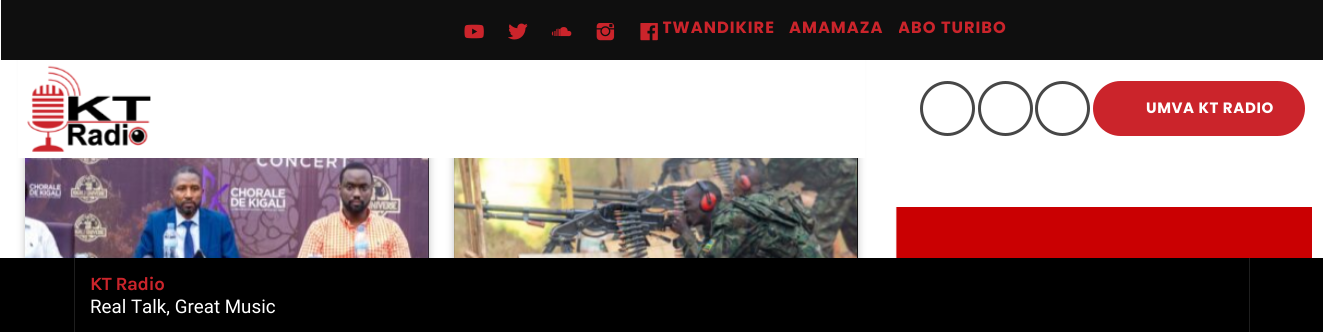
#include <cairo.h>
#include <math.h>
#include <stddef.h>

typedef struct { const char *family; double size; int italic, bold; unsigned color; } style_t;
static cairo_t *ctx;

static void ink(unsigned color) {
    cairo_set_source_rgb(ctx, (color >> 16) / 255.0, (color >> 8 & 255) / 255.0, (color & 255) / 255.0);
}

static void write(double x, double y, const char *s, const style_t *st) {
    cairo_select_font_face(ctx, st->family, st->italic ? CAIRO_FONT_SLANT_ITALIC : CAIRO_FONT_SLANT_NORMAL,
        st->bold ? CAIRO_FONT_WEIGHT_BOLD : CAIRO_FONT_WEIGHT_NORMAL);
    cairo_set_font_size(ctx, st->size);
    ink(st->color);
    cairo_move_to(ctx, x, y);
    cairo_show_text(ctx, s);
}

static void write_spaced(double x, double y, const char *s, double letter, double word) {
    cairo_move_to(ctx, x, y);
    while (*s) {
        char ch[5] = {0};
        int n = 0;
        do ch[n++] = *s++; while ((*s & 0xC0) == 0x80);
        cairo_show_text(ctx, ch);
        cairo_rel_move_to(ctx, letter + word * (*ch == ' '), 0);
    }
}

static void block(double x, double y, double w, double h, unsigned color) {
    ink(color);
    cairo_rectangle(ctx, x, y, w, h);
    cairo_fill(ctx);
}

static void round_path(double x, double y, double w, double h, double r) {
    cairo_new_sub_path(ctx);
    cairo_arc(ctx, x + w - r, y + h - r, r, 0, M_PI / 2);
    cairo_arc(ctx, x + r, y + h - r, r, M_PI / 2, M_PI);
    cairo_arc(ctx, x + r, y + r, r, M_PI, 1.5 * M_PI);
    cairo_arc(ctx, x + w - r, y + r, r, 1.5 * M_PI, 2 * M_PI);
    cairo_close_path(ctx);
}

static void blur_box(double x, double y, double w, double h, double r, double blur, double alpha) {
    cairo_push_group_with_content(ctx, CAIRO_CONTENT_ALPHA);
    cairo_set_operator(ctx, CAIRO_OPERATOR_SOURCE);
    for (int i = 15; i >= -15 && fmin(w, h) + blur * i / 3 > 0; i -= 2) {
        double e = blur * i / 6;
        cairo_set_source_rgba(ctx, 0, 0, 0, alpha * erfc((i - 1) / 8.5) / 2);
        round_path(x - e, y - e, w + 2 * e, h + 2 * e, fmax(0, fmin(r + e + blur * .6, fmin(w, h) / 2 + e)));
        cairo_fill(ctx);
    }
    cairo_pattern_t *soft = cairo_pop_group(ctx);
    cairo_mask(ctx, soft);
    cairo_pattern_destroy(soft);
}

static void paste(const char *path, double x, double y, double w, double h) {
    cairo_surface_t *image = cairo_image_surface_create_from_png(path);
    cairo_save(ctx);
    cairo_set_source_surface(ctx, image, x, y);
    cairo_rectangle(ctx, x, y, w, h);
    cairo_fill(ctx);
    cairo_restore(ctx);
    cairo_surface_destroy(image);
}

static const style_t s1 = {"Roboto", 18.75, 0, 0, 0xffffff};

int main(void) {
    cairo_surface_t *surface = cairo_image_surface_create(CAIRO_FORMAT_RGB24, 1323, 332);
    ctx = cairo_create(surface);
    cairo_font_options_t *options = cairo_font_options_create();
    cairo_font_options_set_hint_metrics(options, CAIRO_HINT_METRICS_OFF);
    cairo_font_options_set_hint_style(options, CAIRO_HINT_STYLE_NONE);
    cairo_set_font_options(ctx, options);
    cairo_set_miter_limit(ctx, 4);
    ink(0xffffff);
    cairo_paint(ctx);
    ink(0x000000);
    blur_box(25, 49, 404, 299, 4, 4, 0.25);
    blur_box(454, 49, 404, 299, 4, 4, 0.25);
    block(18, 60, 847, 98, 0xffffff);
    block(1, 0, 1322, 60, 0x0f0f0f);
    paste("pic1.png", 464, 24, 20, 15);
    paste("pic2.png", 508, 23, 20, 17);
    paste("pic3.png", 551, 27, 21, 10);
    paste("pic4.png", 596, 23, 19, 18);
    paste("pic5.png", 640, 23, 18, 18);
    cairo_save(ctx);
    cairo_rectangle(ctx, 663, 15, 112, 25);
    cairo_clip(ctx);
    cairo_select_font_face(ctx, "Poppins", CAIRO_FONT_SLANT_NORMAL, CAIRO_FONT_WEIGHT_BOLD);
    cairo_set_font_size(ctx, 16.25);
    ink(0xcb242b);
    write_spaced(662, 33, "TWANDIKIRE", 1, 0);
    cairo_restore(ctx);
    cairo_select_font_face(ctx, "Poppins", CAIRO_FONT_SLANT_NORMAL, CAIRO_FONT_WEIGHT_BOLD);
    cairo_set_font_size(ctx, 16.25);
    ink(0xcb242b);
    write_spaced(789, 33, "AMAMAZA", 1, 0);
    cairo_save(ctx);
    cairo_rectangle(ctx, 899, 15, 107, 25);
    cairo_clip(ctx);
    write_spaced(898, 33, "ABO TURIBO", 1, 0);
    cairo_restore(ctx);
    paste("pic6.png", 27, 65, 124, 87);
    cairo_arc(ctx, 947.5, 108.5, 26, 0, 2 * M_PI);
    ink(0x474747);
    cairo_set_line_width(ctx, 3);
    cairo_stroke(ctx);
    cairo_arc(ctx, 1005.5, 108.5, 26, 0, 2 * M_PI);
    cairo_stroke(ctx);
    cairo_arc(ctx, 1062.5, 108.5, 26, 0, 2 * M_PI);
    cairo_stroke(ctx);
    ink(0xcb242b);
    round_path(1093, 81, 212, 55, 27.5);
    cairo_fill(ctx);
    cairo_set_font_size(ctx, 15);
    ink(0xffffff);
    write_spaced(1146, 113, "UMVA KT RADIO", 0.6, 0);
    block(428, 158, 1, 100, 0x111111);
    paste("pic7.png", 25, 158, 404, 100);
    block(454, 158, 404, 100, 0x111111);
    paste("pic8.png", 454, 158, 404, 100);
    paste("pic9.png", 895, 207, 417, 51);
    block(0, 258, 1323, 74, 0x000000);
    block(74, 258, 1, 74, 0x1e1e1e);
    cairo_select_font_face(ctx, "Karla", CAIRO_FONT_SLANT_NORMAL, CAIRO_FONT_WEIGHT_BOLD);
    cairo_set_font_size(ctx, 18.75);
    ink(0xcb242b);
    write_spaced(90, 290, "KT Radio", -0.5, 0);
    write(90, 313, "Real Talk, Great Music", &s1);
    block(1249, 258, 1, 74, 0x1e1e1e);
    cairo_surface_write_to_png(surface, "screenshot.png");
    cairo_font_options_destroy(options);
    cairo_destroy(ctx);
    cairo_surface_destroy(surface);
    return 0;
}
